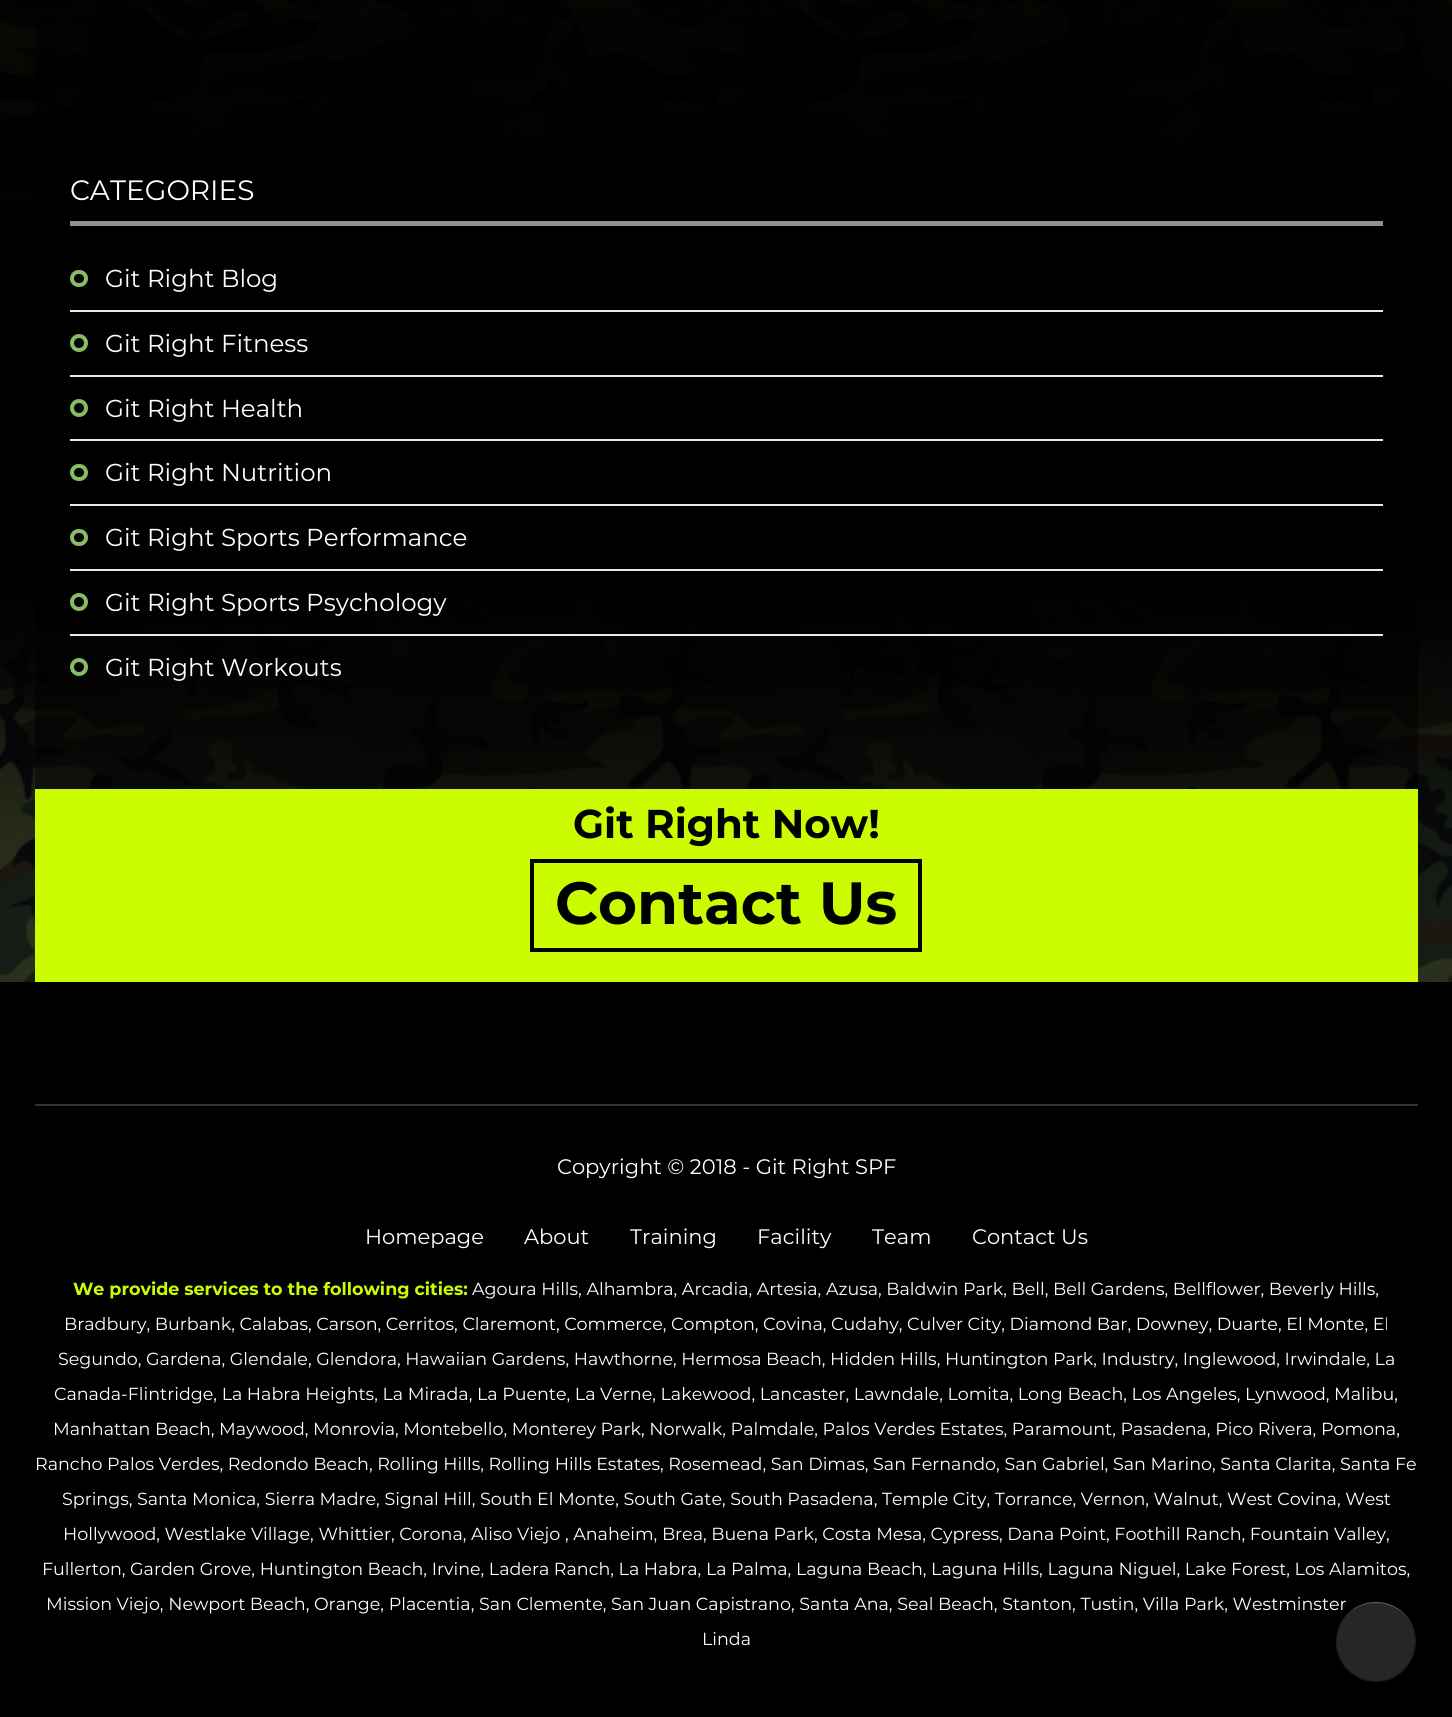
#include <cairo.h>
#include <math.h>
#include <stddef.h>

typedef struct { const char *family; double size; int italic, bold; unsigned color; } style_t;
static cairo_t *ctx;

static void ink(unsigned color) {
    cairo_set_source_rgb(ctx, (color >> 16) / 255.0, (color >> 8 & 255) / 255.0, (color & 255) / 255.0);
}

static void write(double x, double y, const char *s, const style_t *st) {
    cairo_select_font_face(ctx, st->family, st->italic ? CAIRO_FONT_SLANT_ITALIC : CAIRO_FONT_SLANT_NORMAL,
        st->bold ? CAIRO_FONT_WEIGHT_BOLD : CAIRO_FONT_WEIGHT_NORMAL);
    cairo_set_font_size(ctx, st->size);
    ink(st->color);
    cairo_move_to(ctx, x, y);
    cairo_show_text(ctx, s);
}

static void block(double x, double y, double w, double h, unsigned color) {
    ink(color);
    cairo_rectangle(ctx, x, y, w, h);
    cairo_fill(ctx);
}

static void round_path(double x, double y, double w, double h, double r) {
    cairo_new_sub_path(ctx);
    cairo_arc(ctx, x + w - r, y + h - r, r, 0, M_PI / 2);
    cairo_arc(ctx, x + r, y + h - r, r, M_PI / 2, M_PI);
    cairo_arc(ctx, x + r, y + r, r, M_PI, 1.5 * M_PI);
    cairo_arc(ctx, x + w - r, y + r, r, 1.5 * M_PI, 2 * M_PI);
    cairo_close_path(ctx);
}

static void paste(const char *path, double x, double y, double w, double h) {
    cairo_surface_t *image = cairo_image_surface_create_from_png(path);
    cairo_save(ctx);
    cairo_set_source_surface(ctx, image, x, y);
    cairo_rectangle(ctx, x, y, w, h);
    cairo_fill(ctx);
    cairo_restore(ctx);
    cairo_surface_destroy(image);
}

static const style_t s1 = {"Montserrat", 28, 0, 0, 0xffffff};
static const style_t s2 = {"Montserrat", 24.5, 0, 0, 0xffffff};
static const style_t s3 = {"Montserrat", 40.25, 0, 1, 0x000000};
static const style_t s4 = {"Montserrat", 59.5, 0, 1, 0x000000};
static const style_t s5 = {"Montserrat", 21, 0, 0, 0xffffff};
static const style_t s6 = {"Montserrat", 17.5, 0, 1, 0xcbfc02};
static const style_t s7 = {"Montserrat", 17.5, 0, 0, 0xffffff};

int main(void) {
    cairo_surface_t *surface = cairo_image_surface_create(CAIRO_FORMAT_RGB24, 1452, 1717);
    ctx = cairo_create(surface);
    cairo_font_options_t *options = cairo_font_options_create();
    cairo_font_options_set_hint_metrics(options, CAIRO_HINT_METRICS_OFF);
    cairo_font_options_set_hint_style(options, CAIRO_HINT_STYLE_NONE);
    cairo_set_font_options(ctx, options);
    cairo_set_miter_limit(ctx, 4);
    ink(0xffffff);
    cairo_paint(ctx);
    paste("pic1.png", 0, 0, 1452, 982);
    cairo_set_source_rgba(ctx, 0, 0, 0, 0.5);
    cairo_rectangle(ctx, 35, 0, 1383, 789);
    cairo_fill(ctx);
    write(70, 200, "CATEGORIES", &s1);
    block(70, 221, 1313, 5, 0x919191);
    block(70, 310, 1313, 2, 0xe9e9e9);
    round_path(72, 272, 14, 13, 6.5);
    ink(0x87bd65);
    cairo_set_line_width(ctx, 4);
    cairo_stroke(ctx);
    write(105, 287, "Git Right Blog", &s2);
    block(70, 375, 1313, 2, 0xe9e9e9);
    cairo_new_path(ctx);
    cairo_arc(ctx, 79, 343, 7, 0, 2 * M_PI);
    ink(0x87bd65);
    cairo_stroke(ctx);
    write(105, 352, "Git Right Fitness", &s2);
    block(70, 439, 1313, 2, 0xe9e9e9);
    cairo_new_path(ctx);
    cairo_arc(ctx, 79, 408, 7, 0, 2 * M_PI);
    ink(0x87bd65);
    cairo_stroke(ctx);
    write(105, 417, "Git Right Health", &s2);
    block(70, 504, 1313, 2, 0xe9e9e9);
    round_path(72, 466, 14, 13, 6.5);
    ink(0x87bd65);
    cairo_stroke(ctx);
    write(105, 481, "Git Right Nutrition", &s2);
    block(70, 569, 1313, 2, 0xe9e9e9);
    round_path(72, 531, 14, 13, 6.5);
    ink(0x87bd65);
    cairo_stroke(ctx);
    write(105, 546, "Git Right Sports Performance", &s2);
    block(70, 634, 1313, 2, 0xe9e9e9);
    cairo_new_path(ctx);
    cairo_arc(ctx, 79, 602, 7, 0, 2 * M_PI);
    ink(0x87bd65);
    cairo_stroke(ctx);
    write(105, 611, "Git Right Sports Psychology", &s2);
    cairo_new_path(ctx);
    cairo_arc(ctx, 79, 667, 7, 0, 2 * M_PI);
    ink(0x87bd65);
    cairo_stroke(ctx);
    write(105, 676, "Git Right Workouts", &s2);
    block(35, 789, 1383, 193, 0xcbfc02);
    write(573, 838, "Git Right Now!", &s3);
    cairo_rectangle(ctx, 532, 861, 388, 89);
    cairo_stroke(ctx);
    write(555, 924, "Contact Us", &s4);
    block(0, 982, 1452, 735, 0x000000);
    block(35, 1104, 1383, 2, 0x323332);
    write(557, 1174, "Copyright © 2018 - Git Right SPF", &s5);
    write(365, 1244, "Homepage", &s5);
    write(524, 1244, "About", &s5);
    write(630, 1244, "Training", &s5);
    write(757, 1244, "Facility", &s5);
    write(872, 1244, "Team", &s5);
    write(972, 1244, "Contact Us", &s5);
    write(73, 1295, "We provide services to the following cities:", &s6);
    write(472, 1295, "Agoura Hills, Alhambra, Arcadia, Artesia, Azusa, Baldwin Park, Bell, Bell Gardens, Bellflower, Beverly Hills,", &s7);
    write(64, 1330, "Bradbury, Burbank, Calabas, Carson, Cerritos, Claremont, Commerce, Compton, Covina, Cudahy, Culver City, Diamond Bar, Downey, Duarte, El Monte, El", &s7);
    write(58, 1365, "Segundo, Gardena, Glendale, Glendora, Hawaiian Gardens, Hawthorne, Hermosa Beach, Hidden Hills, Huntington Park, Industry, Inglewood, Irwindale, La", &s7);
    write(54, 1400, "Canada-Flintridge, La Habra Heights, La Mirada, La Puente, La Verne, Lakewood, Lancaster, Lawndale, Lomita, Long Beach, Los Angeles, Lynwood, Malibu,", &s7);
    write(53, 1435, "Manhattan Beach, Maywood, Monrovia, Montebello, Monterey Park, Norwalk, Palmdale, Palos Verdes Estates, Paramount, Pasadena, Pico Rivera, Pomona,", &s7);
    write(35, 1470, "Rancho Palos Verdes, Redondo Beach, Rolling Hills, Rolling Hills Estates, Rosemead, San Dimas, San Fernando, San Gabriel, San Marino, Santa Clarita, Santa Fe", &s7);
    write(62, 1505, "Springs, Santa Monica, Sierra Madre, Signal Hill, South El Monte, South Gate, South Pasadena, Temple City, Torrance, Vernon, Walnut, West Covina, West", &s7);
    write(63, 1540, "Hollywood, Westlake Village, Whittier, Corona, Aliso Viejo , Anaheim, Brea, Buena Park, Costa Mesa, Cypress, Dana Point, Foothill Ranch, Fountain Valley,", &s7);
    write(42, 1575, "Fullerton, Garden Grove, Huntington Beach, Irvine, Ladera Ranch, La Habra, La Palma, Laguna Beach, Laguna Hills, Laguna Niguel, Lake Forest, Los Alamitos,", &s7);
    write(46, 1610, "Mission Viejo, Newport Beach, Orange, Placentia, San Clemente, San Juan Capistrano, Santa Ana, Seal Beach, Stanton, Tustin, Villa Park, Westminster", &s7);
    write(702, 1645, "Linda", &s7);
    cairo_set_source_rgba(ctx, 0.153, 0.153, 0.153, 0.98);
    cairo_new_path(ctx);
    cairo_arc(ctx, 1375.5, 1641.5, 40.5, 0, 2 * M_PI);
    cairo_fill(ctx);
    cairo_set_source_rgba(ctx, 1, 1, 1, 0.39);
    cairo_new_path(ctx);
    cairo_move_to(ctx, 1376, 1603);
    cairo_curve_to(ctx, 1398, 1603, 1416, 1621, 1416, 1642);
    cairo_curve_to(ctx, 1416, 1634, 1414, 1626, 1409, 1619);
    cairo_curve_to(ctx, 1387, 1586, 1334, 1602, 1335, 1642);
    cairo_curve_to(ctx, 1335, 1621, 1353, 1603, 1376, 1603);
    cairo_close_path(ctx);
    cairo_fill(ctx);
    cairo_arc(ctx, 1375.5, 1641.5, 39.5, 0, 2 * M_PI);
    cairo_set_source_rgba(ctx, 0, 0, 0, 0.2);
    cairo_set_line_width(ctx, 2);
    cairo_stroke(ctx);
    cairo_arc(ctx, 1376, 1642, 41, 0, 2 * M_PI);
    cairo_set_source_rgba(ctx, 0, 0, 0, 0.98);
    cairo_stroke(ctx);
    cairo_surface_write_to_png(surface, "screenshot.png");
    cairo_font_options_destroy(options);
    cairo_destroy(ctx);
    cairo_surface_destroy(surface);
    return 0;
}
